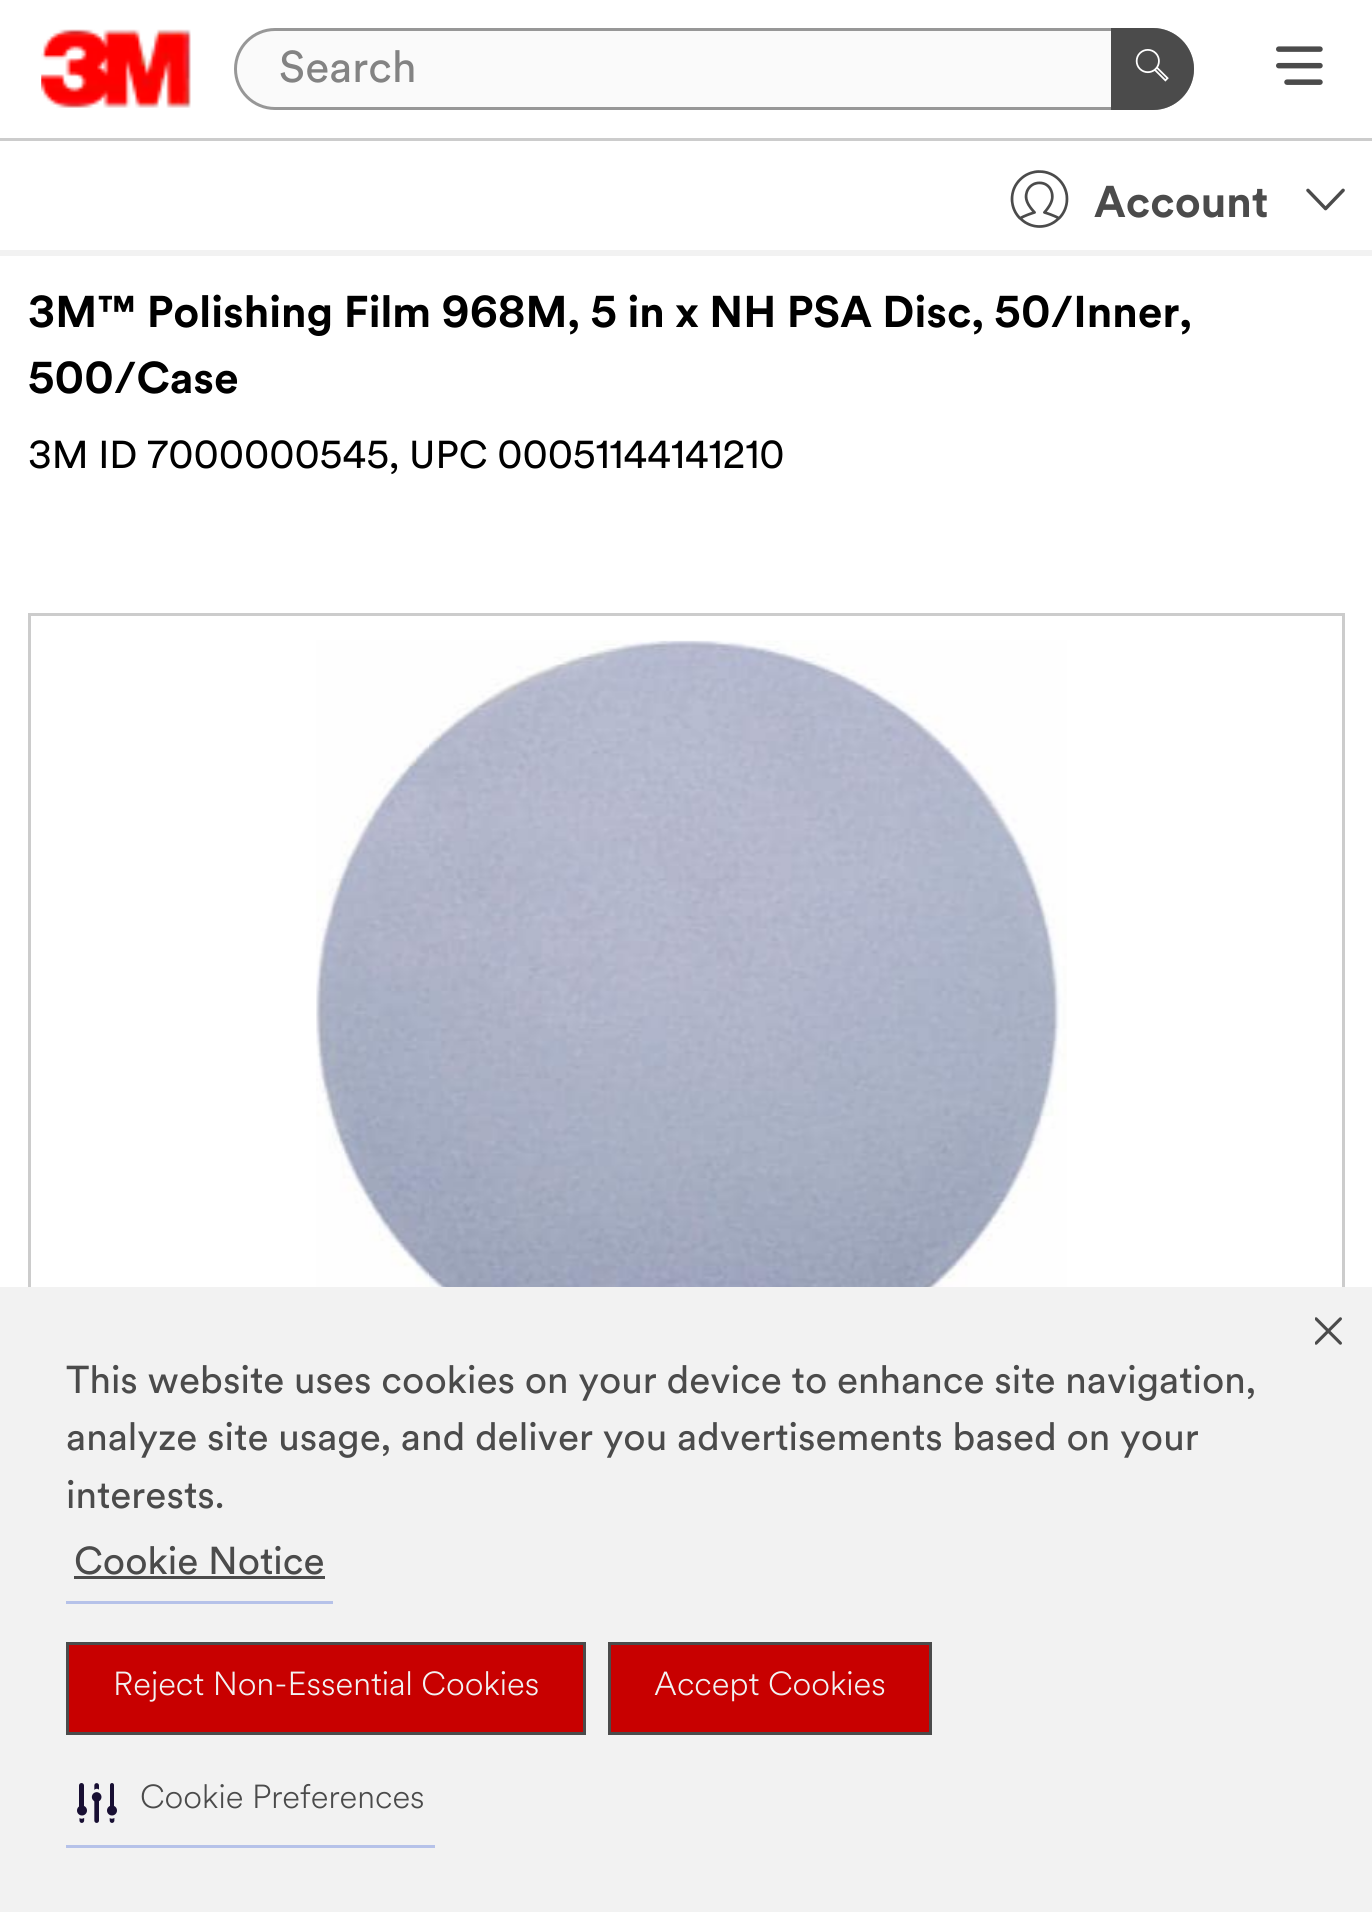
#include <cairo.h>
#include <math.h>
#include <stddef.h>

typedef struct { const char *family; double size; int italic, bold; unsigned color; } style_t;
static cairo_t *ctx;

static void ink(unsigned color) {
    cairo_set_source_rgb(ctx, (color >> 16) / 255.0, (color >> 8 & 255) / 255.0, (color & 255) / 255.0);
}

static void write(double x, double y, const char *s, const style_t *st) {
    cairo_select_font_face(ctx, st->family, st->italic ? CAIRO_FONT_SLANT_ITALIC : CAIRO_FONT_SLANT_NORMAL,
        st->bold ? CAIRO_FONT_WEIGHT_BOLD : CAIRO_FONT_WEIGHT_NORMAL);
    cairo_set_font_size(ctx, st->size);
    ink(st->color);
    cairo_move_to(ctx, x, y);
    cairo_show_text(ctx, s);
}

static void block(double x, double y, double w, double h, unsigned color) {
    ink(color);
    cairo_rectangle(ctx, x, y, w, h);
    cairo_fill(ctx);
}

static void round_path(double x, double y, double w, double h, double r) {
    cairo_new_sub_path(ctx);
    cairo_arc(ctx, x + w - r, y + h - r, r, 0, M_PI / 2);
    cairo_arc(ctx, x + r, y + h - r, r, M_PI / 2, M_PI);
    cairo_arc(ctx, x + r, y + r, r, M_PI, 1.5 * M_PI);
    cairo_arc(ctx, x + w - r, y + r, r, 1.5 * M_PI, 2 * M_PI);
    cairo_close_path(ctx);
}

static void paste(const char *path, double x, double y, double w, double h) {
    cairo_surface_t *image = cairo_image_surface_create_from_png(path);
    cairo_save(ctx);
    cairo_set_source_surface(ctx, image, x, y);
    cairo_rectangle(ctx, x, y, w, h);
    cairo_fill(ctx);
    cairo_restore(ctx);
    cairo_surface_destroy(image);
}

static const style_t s1 = {"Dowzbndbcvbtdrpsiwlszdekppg", 44, 0, 0, 0x838383};
static const style_t s2 = {"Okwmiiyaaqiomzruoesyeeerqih", 44, 0, 1, 0x4b4b4b};
static const style_t s3 = {"Okwmiiyaaqiomzruoesyeeerqih", 44, 0, 1, 0x000000};
static const style_t s4 = {"Dowzbndbcvbtdrpsiwlszdekppg", 38.5, 0, 0, 0x000000};
static const style_t s5 = {"Dowzbndbcvbtdrpsiwlszdekppg", 38.5, 0, 0, 0x4b4b4b};
static const style_t s6 = {"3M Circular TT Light", 33, 0, 0, 0xf2f2f2};
static const style_t s7 = {"3M Circular TT Light", 33, 0, 0, 0x4b4b4b};

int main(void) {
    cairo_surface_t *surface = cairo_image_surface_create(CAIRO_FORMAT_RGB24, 1372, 1912);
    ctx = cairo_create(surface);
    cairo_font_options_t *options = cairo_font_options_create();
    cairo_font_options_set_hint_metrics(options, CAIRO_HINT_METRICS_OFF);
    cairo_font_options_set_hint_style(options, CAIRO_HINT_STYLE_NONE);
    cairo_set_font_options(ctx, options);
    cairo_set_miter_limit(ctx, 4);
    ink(0xffffff);
    cairo_paint(ctx);
    block(0, 250, 1372, 6, 0xf2f2f2);
    paste("pic1.png", 41, 29, 150, 79);
    ink(0xfafafa);
    round_path(235.5, 29.5, 957, 79, 39.5);
    cairo_fill_preserve(ctx);
    ink(0x979797);
    cairo_set_line_width(ctx, 3);
    cairo_stroke(ctx);
    write(279, 82, "Search", &s1);
    ink(0x4b4b4b);
    cairo_new_path(ctx);
    cairo_move_to(ctx, 1111, 28);
    cairo_line_to(ctx, 1153, 28);
    cairo_curve_to(ctx, 1175.5, 28, 1194, 46.5, 1194, 69);
    cairo_curve_to(ctx, 1194, 91.5, 1175.5, 110, 1153, 110);
    cairo_line_to(ctx, 1111, 110);
    cairo_close_path(ctx);
    cairo_fill(ctx);
    paste("pic2.png", 1135, 49, 34, 33);
    paste("pic3.png", 1276, 46, 47, 39);
    block(0, 138, 1372, 3, 0xcccccc);
    paste("pic4.png", 1010, 170, 59, 58);
    write(1094, 217, "Account", &s2);
    paste("pic5.png", 1306, 188, 39, 23);
    write(28, 327, "3M™ Polishing Film 968M, 5 in x NH PSA Disc, 50/Inner,", &s3);
    write(28, 393, "500/Case", &s3);
    write(28, 468, "3M ID 7000000545, UPC 00051144141210", &s4);
    cairo_rectangle(ctx, 29.5, 614.5, 1314, 932);
    ink(0xcccccc);
    cairo_stroke(ctx);
    paste("pic6.png", 316, 640, 751, 647);
    block(0, 1287, 1372, 625, 0xf2f2f2);
    write(66, 1393, "This website uses cookies on your device to enhance site navigation,", &s5);
    write(66, 1450, "analyze site usage, and deliver you advertisements based on your", &s5);
    write(66, 1508, "interests.", &s5);
    block(66, 1601, 267, 3, 0xb6c2e9);
    write(74, 1574, "Cookie Notice", &s5);
    block(74, 1576, 251, 3, 0x4b4b4b);
    paste("pic7.png", 1315, 1317, 27, 28);
    ink(0xc80000);
    cairo_rectangle(ctx, 67.5, 1643.5, 517, 90);
    cairo_fill_preserve(ctx);
    ink(0x4b4b4b);
    cairo_stroke(ctx);
    write(113, 1695, "Reject Non-Essential Cookies", &s6);
    ink(0xc80000);
    cairo_rectangle(ctx, 609.5, 1643.5, 321, 90);
    cairo_fill_preserve(ctx);
    ink(0x4b4b4b);
    cairo_stroke(ctx);
    write(654, 1695, "Accept Cookies", &s6);
    block(66, 1845, 369, 3, 0xb6c2e9);
    paste("pic8.png", 77, 1783, 40, 40);
    write(140, 1808, "Cookie Preferences", &s7);
    cairo_surface_write_to_png(surface, "screenshot.png");
    cairo_font_options_destroy(options);
    cairo_destroy(ctx);
    cairo_surface_destroy(surface);
    return 0;
}
